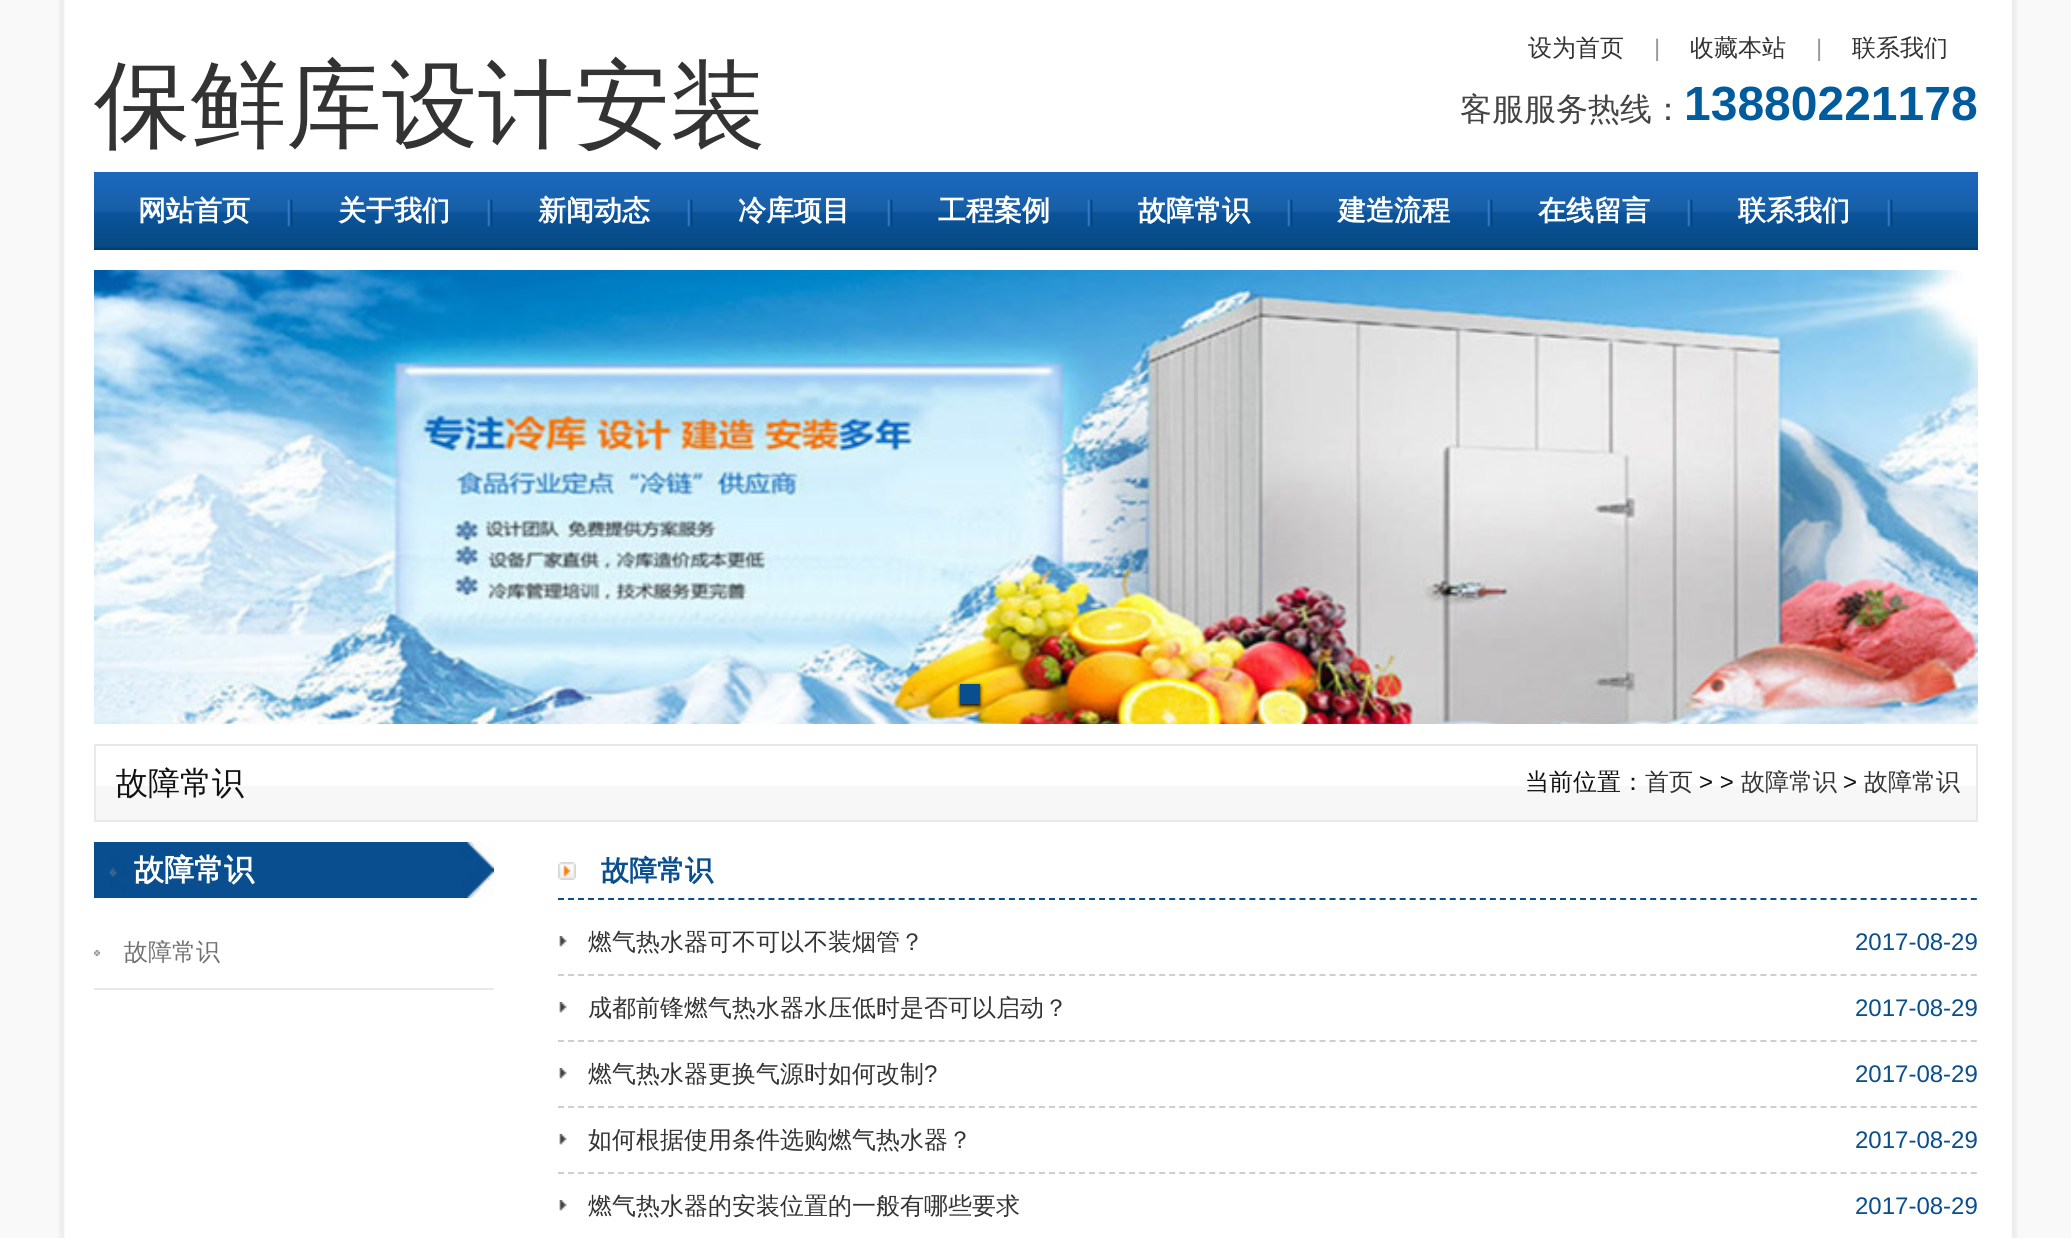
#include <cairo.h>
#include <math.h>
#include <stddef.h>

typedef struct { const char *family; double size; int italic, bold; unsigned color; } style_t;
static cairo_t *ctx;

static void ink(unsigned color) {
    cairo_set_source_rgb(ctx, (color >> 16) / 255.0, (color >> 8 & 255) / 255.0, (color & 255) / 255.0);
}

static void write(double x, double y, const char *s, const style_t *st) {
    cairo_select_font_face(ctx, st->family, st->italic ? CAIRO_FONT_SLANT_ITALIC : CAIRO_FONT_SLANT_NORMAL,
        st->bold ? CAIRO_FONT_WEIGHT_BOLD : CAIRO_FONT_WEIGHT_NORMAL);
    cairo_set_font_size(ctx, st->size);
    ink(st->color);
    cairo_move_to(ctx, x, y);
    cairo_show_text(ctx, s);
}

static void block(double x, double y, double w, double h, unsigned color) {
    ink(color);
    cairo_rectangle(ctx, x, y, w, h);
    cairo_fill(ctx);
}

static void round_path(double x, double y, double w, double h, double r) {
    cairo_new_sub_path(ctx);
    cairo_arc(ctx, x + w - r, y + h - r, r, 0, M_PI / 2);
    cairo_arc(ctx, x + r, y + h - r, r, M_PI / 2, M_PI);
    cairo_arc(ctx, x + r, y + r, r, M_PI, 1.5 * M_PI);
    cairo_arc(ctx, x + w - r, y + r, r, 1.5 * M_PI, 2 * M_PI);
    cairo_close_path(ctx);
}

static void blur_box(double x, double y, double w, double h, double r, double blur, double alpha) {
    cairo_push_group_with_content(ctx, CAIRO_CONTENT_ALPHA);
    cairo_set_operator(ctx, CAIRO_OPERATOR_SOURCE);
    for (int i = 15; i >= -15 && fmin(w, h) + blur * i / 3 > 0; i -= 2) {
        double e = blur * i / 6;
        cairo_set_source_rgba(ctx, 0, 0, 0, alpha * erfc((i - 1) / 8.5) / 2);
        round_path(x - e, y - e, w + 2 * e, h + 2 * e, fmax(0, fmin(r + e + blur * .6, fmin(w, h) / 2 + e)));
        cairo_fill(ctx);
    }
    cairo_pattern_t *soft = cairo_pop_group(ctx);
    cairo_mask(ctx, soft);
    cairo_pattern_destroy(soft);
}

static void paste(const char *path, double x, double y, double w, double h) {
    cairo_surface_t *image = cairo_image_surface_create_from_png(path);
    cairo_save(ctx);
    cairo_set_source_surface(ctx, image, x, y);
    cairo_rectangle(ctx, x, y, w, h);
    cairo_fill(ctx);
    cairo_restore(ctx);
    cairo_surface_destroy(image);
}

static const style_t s1 = {"WenQuanYi Zen Hei Medium", 96, 0, 0, 0x333333};
static const style_t s2 = {"WenQuanYi Zen Hei Medium", 24, 0, 0, 0x333333};
static const style_t s3 = {"Liberation Sans", 24, 0, 0, 0x999999};
static const style_t s4 = {"WenQuanYi Zen Hei Medium", 32, 0, 0, 0x444444};
static const style_t s5 = {"Liberation Sans", 48, 0, 1, 0x005c9d};
static const style_t s6 = {"WenQuanYi Zen Hei", 28, 0, 1, 0xffffff};
static const style_t s7 = {"WenQuanYi Zen Hei Medium", 32, 0, 0, 0x111111};
static const style_t s8 = {"WenQuanYi Zen Hei Medium", 24, 0, 0, 0x111111};
static const style_t s9 = {"Liberation Sans", 24, 0, 0, 0x111111};
static const style_t s10 = {"WenQuanYi Zen Hei", 30, 0, 1, 0xffffff};
static const style_t s11 = {"WenQuanYi Zen Hei Medium", 24, 0, 0, 0x717171};
static const style_t s12 = {"WenQuanYi Zen Hei", 28, 0, 1, 0x094e8e};
static const style_t s13 = {"Liberation Sans", 24, 0, 0, 0x094e8e};
static const style_t s14 = {"Liberation Sans", 24, 0, 0, 0x333333};

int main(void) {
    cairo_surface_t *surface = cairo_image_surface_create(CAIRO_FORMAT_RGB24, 2071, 1238);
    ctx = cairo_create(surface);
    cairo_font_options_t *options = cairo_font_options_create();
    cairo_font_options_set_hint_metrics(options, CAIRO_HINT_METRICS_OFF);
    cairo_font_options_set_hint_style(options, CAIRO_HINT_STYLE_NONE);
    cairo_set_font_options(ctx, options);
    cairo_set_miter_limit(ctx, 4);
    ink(0xf9f9f9);
    cairo_paint(ctx);
    paste("pic1.png", 58, 0, 1960, 1238);
    write(94, 138, "保鲜库设计安装", &s1);
    write(1528, 56, "设为首页", &s2);
    write(1654, 56, "|", &s3);
    write(1690, 56, "收藏本站", &s2);
    write(1816, 56, "|", &s3);
    write(1852, 56, "联系我们", &s2);
    write(1460, 120, "客服服务热线：", &s4);
    write(1684, 120, "13880221178", &s5);
    paste("pic2.png", 94, 172, 1884, 78);
    paste("pic3.png", 287, 199, 6, 28);
    write(138, 220, "网站首页", &s6);
    paste("pic3.png", 487, 199, 6, 28);
    write(338, 220, "关于我们", &s6);
    paste("pic3.png", 687, 199, 6, 28);
    write(538, 220, "新闻动态", &s6);
    paste("pic3.png", 887, 199, 6, 28);
    write(738, 220, "冷库项目", &s6);
    paste("pic3.png", 1087, 199, 6, 28);
    write(938, 220, "工程案例", &s6);
    paste("pic3.png", 1287, 199, 6, 28);
    write(1138, 220, "故障常识", &s6);
    paste("pic3.png", 1487, 199, 6, 28);
    write(1338, 220, "建造流程", &s6);
    paste("pic3.png", 1687, 199, 6, 28);
    write(1538, 220, "在线留言", &s6);
    paste("pic3.png", 1887, 199, 6, 28);
    write(1738, 220, "联系我们", &s6);
    paste("pic4.png", 94, 270, 1884, 454);
    ink(0x000000);
    blur_box(960, 686, 20, 20, 0, 2, 1);
    block(960, 684, 20, 20, 0x094f8f);
    block(96, 786, 1880, 34, 0xf7f7f7);
    cairo_rectangle(ctx, 95, 745, 1882, 76);
    ink(0xe9e9e9);
    cairo_stroke(ctx);
    write(116, 794, "故障常识", &s7);
    write(1525, 790, "当前位置：", &s8);
    write(1645, 790, "首页", &s2);
    write(1699, 790, "> >", &s9);
    write(1741, 790, "故障常识", &s2);
    write(1843, 790, ">", &s9);
    write(1864, 790, "故障常识", &s2);
    paste("pic5.png", 94, 842, 400, 56);
    write(134, 880, "故障常识", &s10);
    block(94, 988, 400, 2, 0xe9e9e9);
    paste("pic6.png", 94, 950, 6, 6);
    write(124, 960, "故障常识", &s11);
    paste("pic7.png", 558, 862, 18, 18);
    cairo_new_path(ctx);
    cairo_move_to(ctx, 558, 899);
    cairo_line_to(ctx, 1978, 899);
    ink(0x094e8e);
    cairo_set_dash(ctx, (double[]){6, 4.02}, 2, 0);
    cairo_stroke(ctx);
    write(601, 880, "故障常识", &s12);
    cairo_new_path(ctx);
    cairo_move_to(ctx, 558, 975);
    cairo_line_to(ctx, 1978, 975);
    ink(0xcecece);
    cairo_stroke(ctx);
    paste("pic8.png", 559, 936, 8, 11);
    write(588, 950, "燃气热水器可不可以不装烟管？", &s2);
    write(1855, 950, "2017-08-29", &s13);
    cairo_new_path(ctx);
    cairo_move_to(ctx, 558, 1041);
    cairo_line_to(ctx, 1978, 1041);
    ink(0xcecece);
    cairo_stroke(ctx);
    paste("pic8.png", 559, 1002, 8, 11);
    write(588, 1016, "成都前锋燃气热水器水压低时是否可以启动？", &s2);
    write(1855, 1016, "2017-08-29", &s13);
    cairo_new_path(ctx);
    cairo_move_to(ctx, 558, 1107);
    cairo_line_to(ctx, 1978, 1107);
    ink(0xcecece);
    cairo_stroke(ctx);
    paste("pic8.png", 559, 1068, 8, 11);
    write(588, 1082, "燃气热水器更换气源时如何改制", &s2);
    write(924, 1082, "?", &s14);
    write(1855, 1082, "2017-08-29", &s13);
    cairo_new_path(ctx);
    cairo_move_to(ctx, 558, 1173);
    cairo_line_to(ctx, 1978, 1173);
    ink(0xcecece);
    cairo_stroke(ctx);
    paste("pic8.png", 559, 1134, 8, 11);
    write(588, 1148, "如何根据使用条件选购燃气热水器？", &s2);
    write(1855, 1148, "2017-08-29", &s13);
    paste("pic8.png", 559, 1200, 8, 11);
    write(588, 1214, "燃气热水器的安装位置的一般有哪些要求", &s2);
    write(1855, 1214, "2017-08-29", &s13);
    cairo_surface_write_to_png(surface, "screenshot.png");
    cairo_font_options_destroy(options);
    cairo_destroy(ctx);
    cairo_surface_destroy(surface);
    return 0;
}
